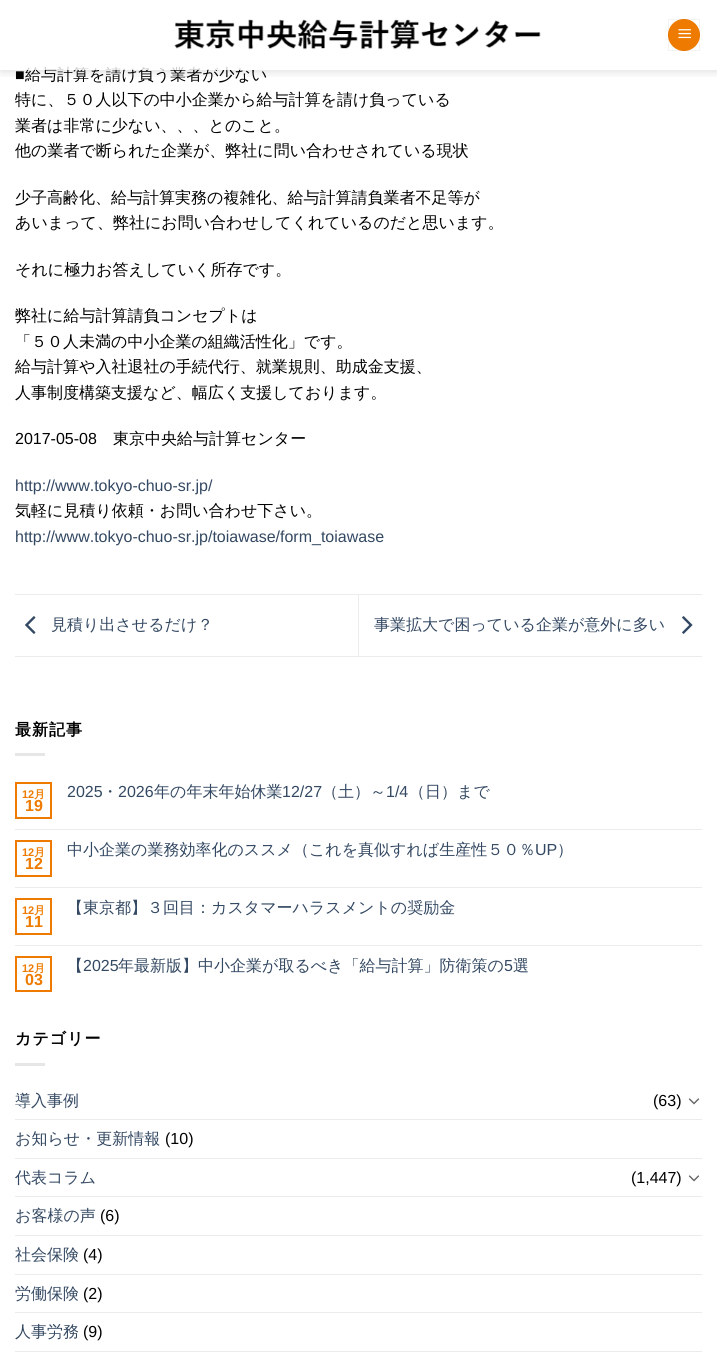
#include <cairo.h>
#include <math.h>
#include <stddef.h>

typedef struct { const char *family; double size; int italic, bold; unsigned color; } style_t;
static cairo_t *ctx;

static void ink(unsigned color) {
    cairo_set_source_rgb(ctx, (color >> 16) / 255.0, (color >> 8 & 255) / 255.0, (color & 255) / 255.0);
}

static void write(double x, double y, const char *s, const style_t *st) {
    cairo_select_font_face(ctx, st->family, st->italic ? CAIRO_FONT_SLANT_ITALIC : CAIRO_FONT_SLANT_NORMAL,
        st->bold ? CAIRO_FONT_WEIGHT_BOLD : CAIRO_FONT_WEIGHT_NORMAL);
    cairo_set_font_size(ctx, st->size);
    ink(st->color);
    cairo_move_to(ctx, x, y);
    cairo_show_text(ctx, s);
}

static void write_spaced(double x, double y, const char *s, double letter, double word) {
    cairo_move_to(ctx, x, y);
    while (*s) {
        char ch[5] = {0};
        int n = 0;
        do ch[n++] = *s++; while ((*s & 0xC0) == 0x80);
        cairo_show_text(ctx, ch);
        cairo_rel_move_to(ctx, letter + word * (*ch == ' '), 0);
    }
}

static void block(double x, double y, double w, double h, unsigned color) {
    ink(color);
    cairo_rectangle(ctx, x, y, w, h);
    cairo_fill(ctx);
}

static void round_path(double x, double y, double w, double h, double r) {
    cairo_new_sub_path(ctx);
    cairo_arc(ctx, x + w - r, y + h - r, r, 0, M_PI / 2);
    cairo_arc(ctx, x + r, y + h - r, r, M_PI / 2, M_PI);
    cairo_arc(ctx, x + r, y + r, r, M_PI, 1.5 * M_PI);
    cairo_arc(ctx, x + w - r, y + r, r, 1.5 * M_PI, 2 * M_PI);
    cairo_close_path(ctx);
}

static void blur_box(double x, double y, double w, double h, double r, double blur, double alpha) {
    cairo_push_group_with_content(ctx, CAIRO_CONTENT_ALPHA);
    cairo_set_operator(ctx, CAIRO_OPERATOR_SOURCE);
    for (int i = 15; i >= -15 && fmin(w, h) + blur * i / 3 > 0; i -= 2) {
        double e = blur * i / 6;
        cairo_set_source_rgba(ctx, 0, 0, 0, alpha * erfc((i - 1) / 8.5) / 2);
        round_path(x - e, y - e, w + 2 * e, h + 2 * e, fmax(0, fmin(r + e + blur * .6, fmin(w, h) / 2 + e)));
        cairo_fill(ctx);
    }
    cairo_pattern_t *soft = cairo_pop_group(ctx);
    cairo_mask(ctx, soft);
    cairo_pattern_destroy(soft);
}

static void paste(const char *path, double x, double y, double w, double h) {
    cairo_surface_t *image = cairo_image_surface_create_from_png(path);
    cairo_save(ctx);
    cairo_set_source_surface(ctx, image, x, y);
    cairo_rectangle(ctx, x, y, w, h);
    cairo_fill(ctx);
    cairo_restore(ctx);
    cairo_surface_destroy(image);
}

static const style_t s1 = {"WenQuanYi Zen Hei Medium", 16, 0, 0, 0x000000};
static const style_t s2 = {"Liberation Sans", 16, 0, 0, 0x000000};
static const style_t s3 = {"Liberation Sans", 16, 0, 0, 0x334862};
static const style_t s4 = {"WenQuanYi Zen Hei Medium", 16, 0, 0, 0x334862};
static const style_t s5 = {"Liberation Sans", 11, 0, 1, 0xee7b00};
static const style_t s6 = {"WenQuanYi Zen Hei", 11, 0, 1, 0xee7b00};
static const style_t s7 = {"Liberation Sans", 16, 0, 1, 0xee7b00};

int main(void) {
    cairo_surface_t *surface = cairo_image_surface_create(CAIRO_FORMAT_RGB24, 717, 1361);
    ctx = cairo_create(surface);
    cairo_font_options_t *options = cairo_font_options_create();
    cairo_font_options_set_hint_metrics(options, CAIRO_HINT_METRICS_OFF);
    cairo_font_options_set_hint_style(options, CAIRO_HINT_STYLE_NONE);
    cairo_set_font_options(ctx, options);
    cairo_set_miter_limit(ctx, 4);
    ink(0xffffff);
    cairo_paint(ctx);
    cairo_save(ctx);
    cairo_rectangle(ctx, 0, 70, 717, 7);
    cairo_clip(ctx);
    ink(0x000000);
    blur_box(1, 1, 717, 70, 0, 5, 0.15);
    cairo_restore(ctx);
    paste("pic1.png", 174, 19, 367, 31);
    ink(0xee7b00);
    cairo_arc(ctx, 684, 35, 16, 0, 2 * M_PI);
    cairo_fill(ctx);
    cairo_rectangle(ctx, 668.5, 19.5, 31, 31);
    cairo_set_source_rgba(ctx, 0, 0, 0, 0.05);
    cairo_set_line_width(ctx, 1);
    cairo_stroke(ctx);
    paste("pic2.png", 678, 29, 13, 10);
    write(25, 80, "給与計算を請け負う業者が少ない", &s1);
    cairo_set_source_rgba(ctx, 1, 1, 1, 0.8);
    cairo_rectangle(ctx, 26, 66, 215, 4);
    cairo_fill(ctx);
    write(15, 80, "■", &s2);
    write(15, 105, "特に、５０人以下の中小企業から給与計算を請け負っている", &s1);
    write(15, 131, "業者は非常に少ない、、、とのこと。", &s1);
    write(15, 156, "他の業者で断られた企業が、弊社に問い合わせされている現状", &s1);
    write(15, 203, "少子高齢化、給与計算実務の複雑化、給与計算請負業者不足等が", &s1);
    write(15, 228, "あいまって、弊社にお問い合わせしてくれているのだと思います。", &s1);
    write(15, 275, "それに極力お答えしていく所存です。", &s1);
    write(15, 321, "弊社に給与計算請負コンセプトは", &s1);
    write(15, 347, "「５０人未満の中小企業の組織活性化」です。", &s1);
    write(15, 372, "給与計算や入社退社の手続代行、就業規則、助成金支援、", &s1);
    write(15, 398, "人事制度構築支援など、幅広く支援しております。", &s1);
    write(15, 444, "2017-05-08", &s2);
    write(113, 444, "東京中央給与計算センター", &s1);
    write(15, 491, "http://www.tokyo-chuo-sr.jp/", &s3);
    write(15, 516, "気軽に見積り依頼・お問い合わせ下さい。", &s1);
    write(15, 542, "http://www.tokyo-chuo-sr.jp/toiawase/form_toiawase", &s3);
    block(15, 594, 687, 1, 0xececec);
    block(15, 656, 687, 1, 0xececec);
    paste("pic3.png", 25, 616, 11, 18);
    write(51, 630, "見積り出させるだけ？", &s4);
    block(358, 595, 1, 61, 0xececec);
    write(374, 630, "事業拡大で困っている企業が意外に多い", &s4);
    paste("pic4.png", 682, 616, 11, 18);
    cairo_select_font_face(ctx, "WenQuanYi Zen Hei", CAIRO_FONT_SLANT_NORMAL, CAIRO_FONT_WEIGHT_BOLD);
    ink(0x000000);
    write_spaced(15, 735, "最新記事", 1, 0);
    block(15, 753, 30, 3, 0xe6e6e6);
    cairo_rectangle(ctx, 16, 783, 35, 35);
    ink(0xee7b00);
    cairo_set_line_width(ctx, 2);
    cairo_stroke(ctx);
    write(22, 798, "12", &s5);
    write(34, 798, "月", &s6);
    write(25, 811, "19", &s7);
    write(67, 797, "2025", &s3);
    write(102, 797, "・", &s4);
    write(118, 797, "2026", &s3);
    write(154, 797, "年の年末年始休業", &s4);
    write(282, 797, "12/27", &s3);
    write(322, 797, "（土）～", &s4);
    write(386, 797, "1/4", &s3);
    write(409, 797, "（日）まで", &s4);
    block(15, 829, 687, 1, 0xececec);
    cairo_rectangle(ctx, 16, 841, 35, 35);
    ink(0xee7b00);
    cairo_stroke(ctx);
    write(22, 856, "12", &s5);
    write(34, 856, "月", &s6);
    write(25, 869, "12", &s7);
    write(67, 855, "中小企業の業務効率化のススメ（これを真似すれば生産性５０％", &s4);
    write(535, 855, "UP", &s3);
    write(557, 855, "）", &s4);
    block(15, 887, 687, 1, 0xececec);
    cairo_rectangle(ctx, 16, 899, 35, 35);
    ink(0xee7b00);
    cairo_stroke(ctx);
    write(22, 914, "12", &s5);
    write(34, 914, "月", &s6);
    write(25, 927, "11", &s7);
    write(67, 913, "【東京都】３回目：カスタマーハラスメントの奨励金", &s4);
    block(15, 945, 687, 1, 0xececec);
    cairo_rectangle(ctx, 16, 957, 35, 34);
    ink(0xee7b00);
    cairo_stroke(ctx);
    write(22, 972, "12", &s5);
    write(34, 972, "月", &s6);
    write(25, 985, "03", &s7);
    write(67, 971, "【", &s4);
    write(83, 971, "2025", &s3);
    write(118, 971, "年最新版】中小企業が取るべき「給与計算」防衛策の", &s4);
    write(504, 971, "5", &s3);
    write(513, 971, "選", &s4);
    cairo_select_font_face(ctx, "WenQuanYi Zen Hei", CAIRO_FONT_SLANT_NORMAL, CAIRO_FONT_WEIGHT_BOLD);
    ink(0x000000);
    write_spaced(15, 1044, "カテゴリー", 1, 0);
    block(15, 1063, 30, 3, 0xe6e6e6);
    write(15, 1106, "導入事例", &s4);
    write(653, 1106, "(63)", &s2);
    paste("pic5.png", 688, 1098, 12, 7);
    block(15, 1119, 687, 1, 0xececec);
    write(15, 1144, "お知らせ・更新情報", &s4);
    write(165, 1144, "(10)", &s2);
    block(15, 1158, 687, 1, 0xececec);
    write(15, 1183, "代表コラム", &s4);
    write(631, 1183, "(1,447)", &s2);
    paste("pic5.png", 688, 1175, 12, 7);
    block(15, 1196, 687, 1, 0xececec);
    write(15, 1221, "お客様の声", &s4);
    write(100, 1221, "(6)", &s2);
    block(15, 1235, 687, 1, 0xececec);
    write(15, 1260, "社会保険", &s4);
    write(83, 1260, "(4)", &s2);
    block(15, 1274, 687, 1, 0xececec);
    write(15, 1299, "労働保険", &s4);
    write(83, 1299, "(2)", &s2);
    block(15, 1312, 687, 1, 0xececec);
    write(15, 1337, "人事労務", &s4);
    write(83, 1337, "(9)", &s2);
    block(15, 1351, 687, 1, 0xececec);
    cairo_surface_write_to_png(surface, "screenshot.png");
    cairo_font_options_destroy(options);
    cairo_destroy(ctx);
    cairo_surface_destroy(surface);
    return 0;
}
